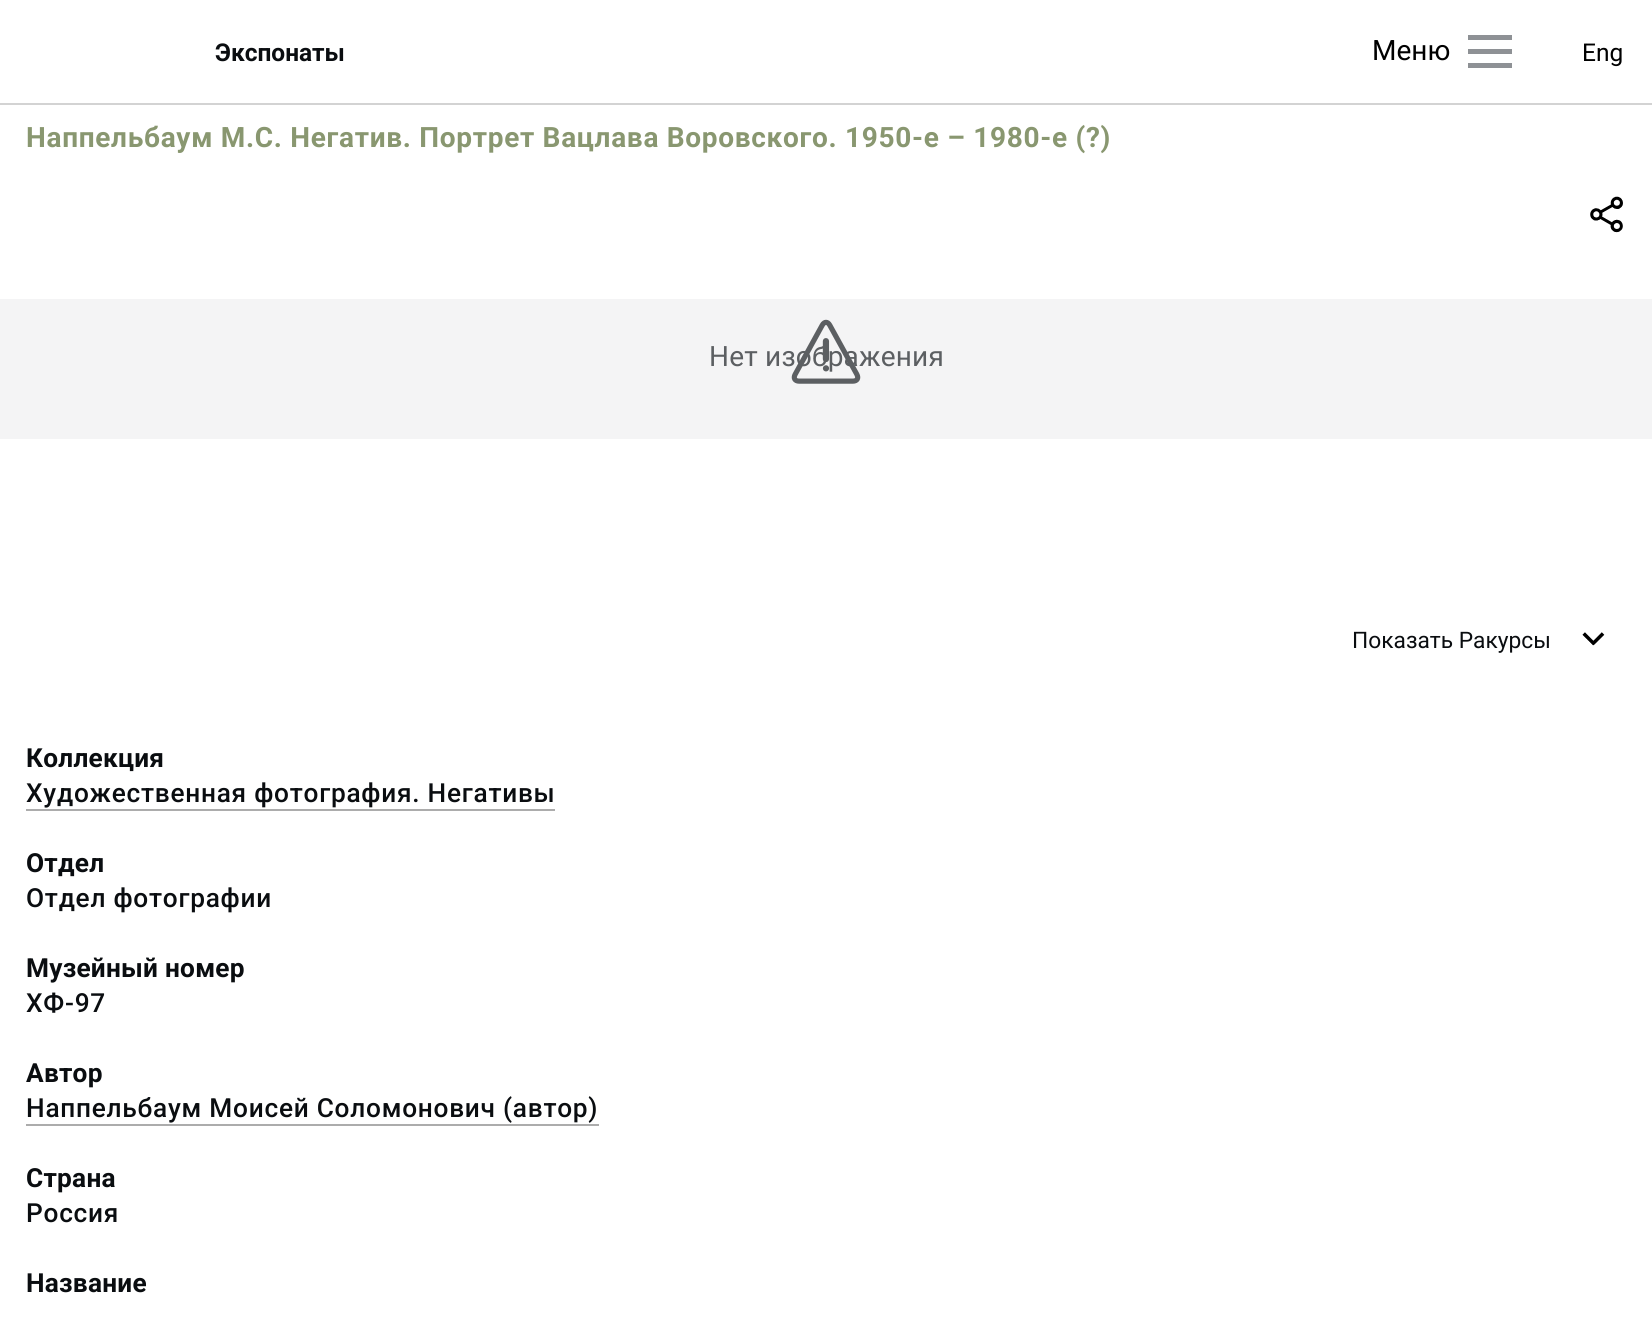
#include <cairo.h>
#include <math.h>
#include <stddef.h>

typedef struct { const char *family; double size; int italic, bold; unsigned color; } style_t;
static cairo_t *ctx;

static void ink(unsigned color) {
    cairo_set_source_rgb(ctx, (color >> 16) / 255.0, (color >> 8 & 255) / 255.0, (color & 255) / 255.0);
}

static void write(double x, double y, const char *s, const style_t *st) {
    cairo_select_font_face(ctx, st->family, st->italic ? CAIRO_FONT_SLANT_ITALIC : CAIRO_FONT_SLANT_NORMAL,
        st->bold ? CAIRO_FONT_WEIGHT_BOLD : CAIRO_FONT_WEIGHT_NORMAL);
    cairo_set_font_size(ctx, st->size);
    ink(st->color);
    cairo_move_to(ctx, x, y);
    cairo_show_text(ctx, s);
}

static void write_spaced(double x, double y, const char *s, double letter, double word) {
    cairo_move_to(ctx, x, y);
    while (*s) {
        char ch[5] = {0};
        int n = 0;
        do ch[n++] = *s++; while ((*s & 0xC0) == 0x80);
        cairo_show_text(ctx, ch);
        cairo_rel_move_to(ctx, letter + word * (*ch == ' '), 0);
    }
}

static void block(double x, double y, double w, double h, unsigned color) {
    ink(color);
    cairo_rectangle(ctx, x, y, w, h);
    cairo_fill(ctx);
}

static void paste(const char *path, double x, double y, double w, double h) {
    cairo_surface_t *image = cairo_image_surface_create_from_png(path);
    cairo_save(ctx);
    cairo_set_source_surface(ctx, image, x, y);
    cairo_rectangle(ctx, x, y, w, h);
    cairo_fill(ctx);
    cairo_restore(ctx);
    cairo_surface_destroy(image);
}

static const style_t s1 = {"Roboto", 24.5, 0, 1, 0x0a0d10};
static const style_t s2 = {"Roboto", 28, 0, 0, 0x000000};
static const style_t s3 = {"Roboto", 24.5, 0, 0, 0x000000};
static const style_t s4 = {"Roboto", 22.75, 0, 0, 0x0a0d10};

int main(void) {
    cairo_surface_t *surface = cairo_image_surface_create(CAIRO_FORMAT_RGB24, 1652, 1318);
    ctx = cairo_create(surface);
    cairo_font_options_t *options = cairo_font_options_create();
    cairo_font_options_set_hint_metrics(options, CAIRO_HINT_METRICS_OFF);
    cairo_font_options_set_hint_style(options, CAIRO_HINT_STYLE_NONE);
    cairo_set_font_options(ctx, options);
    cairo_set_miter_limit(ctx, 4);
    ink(0xffffff);
    cairo_paint(ctx);
    block(0, 103, 1652, 2, 0xd3d3d3);
    write(215, 61, "Экспонаты", &s1);
    block(1468, 35, 44, 5, 0x8e9195);
    write(1372, 60, "Меню", &s2);
    block(1468, 49, 44, 5, 0x8e9195);
    block(1468, 63, 44, 5, 0x8e9195);
    write(1582, 61, "Eng", &s3);
    cairo_select_font_face(ctx, "Roboto", CAIRO_FONT_SLANT_NORMAL, CAIRO_FONT_WEIGHT_BOLD);
    cairo_set_font_size(ctx, 28);
    ink(0x899770);
    write_spaced(26, 147, "Наппельбаум М.С. Негатив. Портрет Вацлава Воровского. 1950-е – 1980-е (?)", 0.7, 0);
    block(0, 299, 1652, 140, 0xf4f4f5);
    cairo_select_font_face(ctx, "Roboto", CAIRO_FONT_SLANT_NORMAL, CAIRO_FONT_WEIGHT_NORMAL);
    ink(0x5c5f62);
    write_spaced(709, 366, "Нет изображения", 0.2, 0);
    paste("pic1.png", 791, 319, 70, 65);
    write(1352, 648, "Показать Ракурсы", &s4);
    paste("pic2.png", 1582, 632, 23, 14);
    paste("pic3.png", 1590, 196, 33, 37);
    cairo_select_font_face(ctx, "Roboto", CAIRO_FONT_SLANT_NORMAL, CAIRO_FONT_WEIGHT_BOLD);
    cairo_set_font_size(ctx, 26.25);
    write_spaced(26, 767, "Коллекция", 0.25, 0);
    cairo_select_font_face(ctx, "Roboto Medium", CAIRO_FONT_SLANT_NORMAL, CAIRO_FONT_WEIGHT_NORMAL);
    write_spaced(26, 802, "Художественная фотография. Негативы", 0.75, 0);
    block(26, 809, 529, 2, 0xacacac);
    cairo_select_font_face(ctx, "Roboto", CAIRO_FONT_SLANT_NORMAL, CAIRO_FONT_WEIGHT_BOLD);
    ink(0x0a0d10);
    write_spaced(26, 872, "Отдел", 0.25, 0);
    cairo_select_font_face(ctx, "Roboto Medium", CAIRO_FONT_SLANT_NORMAL, CAIRO_FONT_WEIGHT_NORMAL);
    write_spaced(26, 907, "Отдел фотографии", 0.75, 0);
    cairo_select_font_face(ctx, "Roboto", CAIRO_FONT_SLANT_NORMAL, CAIRO_FONT_WEIGHT_BOLD);
    write_spaced(26, 977, "Музейный номер", 0.25, 0);
    cairo_select_font_face(ctx, "Roboto Medium", CAIRO_FONT_SLANT_NORMAL, CAIRO_FONT_WEIGHT_NORMAL);
    write_spaced(26, 1012, "ХФ-97", 0.75, 0);
    cairo_select_font_face(ctx, "Roboto", CAIRO_FONT_SLANT_NORMAL, CAIRO_FONT_WEIGHT_BOLD);
    write_spaced(26, 1082, "Автор", 0.25, 0);
    cairo_select_font_face(ctx, "Roboto Medium", CAIRO_FONT_SLANT_NORMAL, CAIRO_FONT_WEIGHT_NORMAL);
    write_spaced(26, 1117, "Наппельбаум Моисей Соломонович (автор)", 0.75, 0);
    block(26, 1124, 573, 2, 0xacacac);
    cairo_select_font_face(ctx, "Roboto", CAIRO_FONT_SLANT_NORMAL, CAIRO_FONT_WEIGHT_BOLD);
    ink(0x0a0d10);
    write_spaced(26, 1187, "Страна", 0.25, 0);
    cairo_select_font_face(ctx, "Roboto Medium", CAIRO_FONT_SLANT_NORMAL, CAIRO_FONT_WEIGHT_NORMAL);
    write_spaced(26, 1222, "Россия", 0.75, 0);
    cairo_select_font_face(ctx, "Roboto", CAIRO_FONT_SLANT_NORMAL, CAIRO_FONT_WEIGHT_BOLD);
    write_spaced(26, 1292, "Название", 0.25, 0);
    cairo_surface_write_to_png(surface, "screenshot.png");
    cairo_font_options_destroy(options);
    cairo_destroy(ctx);
    cairo_surface_destroy(surface);
    return 0;
}
